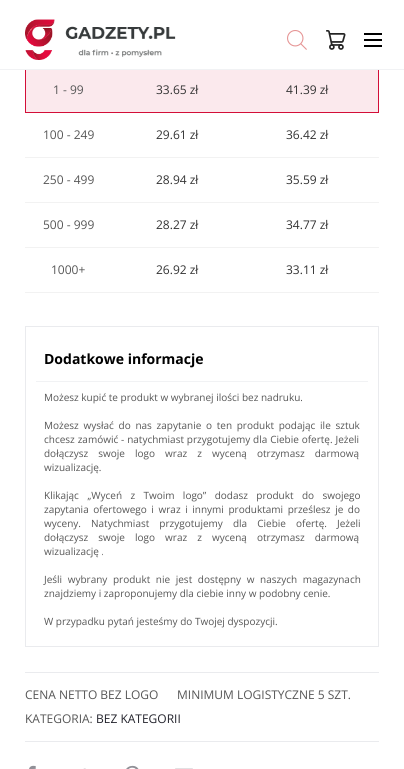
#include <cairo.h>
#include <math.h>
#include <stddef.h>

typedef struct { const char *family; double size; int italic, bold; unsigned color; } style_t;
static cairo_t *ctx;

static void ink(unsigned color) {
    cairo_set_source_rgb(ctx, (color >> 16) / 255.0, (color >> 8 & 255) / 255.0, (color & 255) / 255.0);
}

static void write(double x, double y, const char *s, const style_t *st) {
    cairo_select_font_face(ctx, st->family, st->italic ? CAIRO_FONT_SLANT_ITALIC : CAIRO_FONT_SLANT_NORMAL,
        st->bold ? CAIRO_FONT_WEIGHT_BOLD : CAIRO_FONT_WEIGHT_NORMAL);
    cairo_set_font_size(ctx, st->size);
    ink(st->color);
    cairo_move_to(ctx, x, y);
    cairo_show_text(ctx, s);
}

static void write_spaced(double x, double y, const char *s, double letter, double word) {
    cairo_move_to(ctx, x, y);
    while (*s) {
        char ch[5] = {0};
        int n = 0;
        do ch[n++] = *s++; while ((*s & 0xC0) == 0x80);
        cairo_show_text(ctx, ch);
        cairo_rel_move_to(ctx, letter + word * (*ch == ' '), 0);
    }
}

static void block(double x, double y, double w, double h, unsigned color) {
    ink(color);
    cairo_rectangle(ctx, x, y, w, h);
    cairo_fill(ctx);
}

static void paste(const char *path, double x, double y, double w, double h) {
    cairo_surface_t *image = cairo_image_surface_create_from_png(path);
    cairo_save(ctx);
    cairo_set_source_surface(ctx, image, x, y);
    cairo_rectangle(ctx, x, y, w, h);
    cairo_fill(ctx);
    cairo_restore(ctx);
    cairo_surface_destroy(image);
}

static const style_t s1 = {"Open Sans", 12, 0, 0, 0x565656};
static const style_t s2 = {"Open Sans", 12, 0, 0, 0x333333};
static const style_t s3 = {"Open Sans", 14, 0, 1, 0x000000};
static const style_t s4 = {"Open Sans", 10, 0, 0, 0x565656};
static const style_t s5 = {"Open Sans", 12, 0, 0, 0x23232c};

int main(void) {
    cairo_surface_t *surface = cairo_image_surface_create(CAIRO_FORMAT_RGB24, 404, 769);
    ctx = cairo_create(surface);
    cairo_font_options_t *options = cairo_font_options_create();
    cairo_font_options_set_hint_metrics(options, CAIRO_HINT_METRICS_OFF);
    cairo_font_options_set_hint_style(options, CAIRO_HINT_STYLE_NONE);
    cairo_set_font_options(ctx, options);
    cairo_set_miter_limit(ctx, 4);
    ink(0xffffff);
    cairo_paint(ctx);
    block(26, 70, 352, 42, 0xfbe9ed);
    block(378, 67, 1, 46, 0xd30e38);
    block(25, 112, 354, 1, 0xd30e38);
    block(25, 67, 1, 46, 0xd30e38);
    block(25, 67, 354, 2, 0xffffff);
    block(0, 69, 404, 1, 0xf1f2f4);
    paste("pic1.png", 25, 19, 151, 41);
    paste("pic2.png", 287, 30, 20, 20);
    paste("pic3.png", 326, 30, 20, 20);
    block(364, 39, 18, 2, 0x000000);
    block(364, 33, 18, 2, 0x000000);
    block(364, 45, 18, 2, 0x000000);
    write(53, 94, "1 - 99", &s1);
    write(156, 94, "33.65 zł", &s2);
    write(286, 94, "41.39 zł", &s2);
    write(43, 139, "100 - 249", &s1);
    write(156, 139, "29.61 zł", &s2);
    block(25, 157, 354, 1, 0xf2f2f2);
    write(286, 139, "36.42 zł", &s2);
    write(43, 184, "250 - 499", &s1);
    write(156, 184, "28.94 zł", &s2);
    block(25, 202, 354, 1, 0xf2f2f2);
    write(286, 184, "35.59 zł", &s2);
    write(43, 229, "500 - 999", &s1);
    write(156, 229, "28.27 zł", &s2);
    block(25, 247, 354, 1, 0xf2f2f2);
    write(286, 229, "34.77 zł", &s2);
    write(51, 274, "1000+", &s1);
    write(156, 274, "26.92 zł", &s2);
    block(25, 292, 354, 1, 0xf2f2f2);
    write(286, 274, "33.11 zł", &s2);
    cairo_rectangle(ctx, 25.5, 326.5, 353, 320);
    ink(0xeaebee);
    cairo_set_line_width(ctx, 1);
    cairo_stroke(ctx);
    block(36, 381, 332, 1, 0xf1f2f4);
    write(44, 364, "Dodatkowe informacje", &s3);
    write(44, 401, "Możesz kupić te produkt w wybranej ilości bez nadruku.", &s4);
    write_spaced(44, 429, "Możesz wysłać do nas zapytanie o ten produkt podając ile sztuk", 0, 2.1);
    write_spaced(44, 443, "chcesz zamówić - natychmiast przygotujemy dla Ciebie ofertę. Jeżeli", 0, 0.25);
    write_spaced(44, 457, "dołączysz swoje logo wraz z wyceną otrzymasz darmową", 0, 7.5);
    write(44, 471, "wizualizację.", &s4);
    write_spaced(44, 499, "Klikając „Wyceń z Twoim logo” dodasz produkt do swojego", 0, 5.75);
    write_spaced(44, 513, "zapytania ofertowego i wraz i innymi produktami prześlesz je do", 0, 2);
    write_spaced(44, 527, "wyceny. Natychmiast przygotujemy dla Ciebie ofertę. Jeżeli", 0, 7.5);
    write_spaced(44, 541, "dołączysz swoje logo wraz z wyceną otrzymasz darmową", 0, 7.5);
    write(44, 555, "wizualizację .", &s4);
    write_spaced(44, 583, "Jeśli wybrany produkt nie jest dostępny w naszych magazynach", 0, 3);
    write(44, 597, "znajdziemy i zaproponujemy dla ciebie inny w podobny cenie.", &s4);
    write(44, 625, "W przypadku pytań jesteśmy do Twojej dyspozycji.", &s4);
    block(25, 672, 354, 1, 0xeaebee);
    block(25, 741, 354, 1, 0xeaebee);
    write(25, 699, "CENA NETTO BEZ LOGO", &s1);
    write(177, 699, "MINIMUM LOGISTYCZNE 5 SZT.", &s1);
    write(25, 723, "KATEGORIA:", &s1);
    write(96, 723, "BEZ KATEGORII", &s5);
    paste("pic4.png", 29, 765, 7, 4);
    paste("pic5.png", 83, 768, 3, 1);
    paste("pic6.png", 126, 765, 13, 4);
    paste("pic7.png", 175, 768, 18, 1);
    cairo_surface_write_to_png(surface, "screenshot.png");
    cairo_font_options_destroy(options);
    cairo_destroy(ctx);
    cairo_surface_destroy(surface);
    return 0;
}
